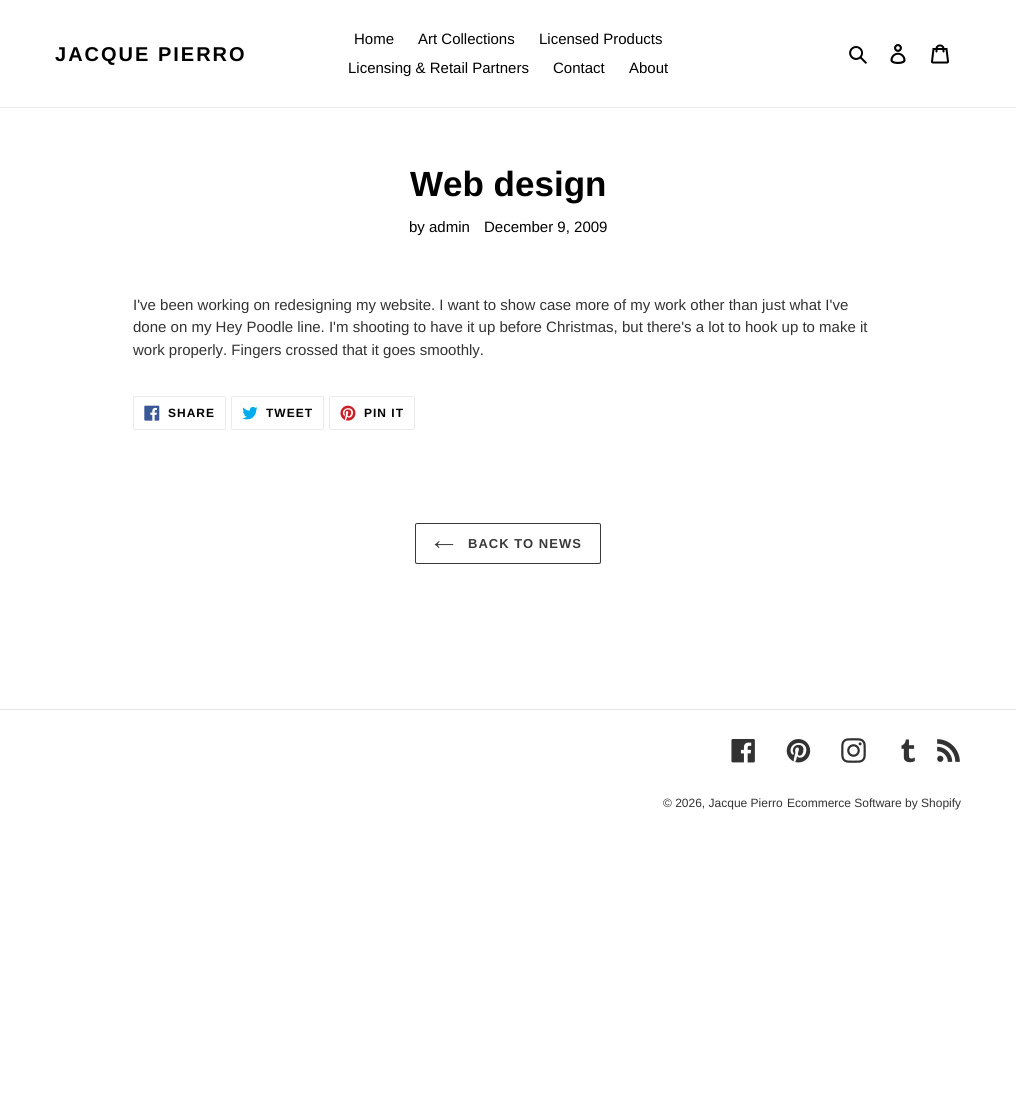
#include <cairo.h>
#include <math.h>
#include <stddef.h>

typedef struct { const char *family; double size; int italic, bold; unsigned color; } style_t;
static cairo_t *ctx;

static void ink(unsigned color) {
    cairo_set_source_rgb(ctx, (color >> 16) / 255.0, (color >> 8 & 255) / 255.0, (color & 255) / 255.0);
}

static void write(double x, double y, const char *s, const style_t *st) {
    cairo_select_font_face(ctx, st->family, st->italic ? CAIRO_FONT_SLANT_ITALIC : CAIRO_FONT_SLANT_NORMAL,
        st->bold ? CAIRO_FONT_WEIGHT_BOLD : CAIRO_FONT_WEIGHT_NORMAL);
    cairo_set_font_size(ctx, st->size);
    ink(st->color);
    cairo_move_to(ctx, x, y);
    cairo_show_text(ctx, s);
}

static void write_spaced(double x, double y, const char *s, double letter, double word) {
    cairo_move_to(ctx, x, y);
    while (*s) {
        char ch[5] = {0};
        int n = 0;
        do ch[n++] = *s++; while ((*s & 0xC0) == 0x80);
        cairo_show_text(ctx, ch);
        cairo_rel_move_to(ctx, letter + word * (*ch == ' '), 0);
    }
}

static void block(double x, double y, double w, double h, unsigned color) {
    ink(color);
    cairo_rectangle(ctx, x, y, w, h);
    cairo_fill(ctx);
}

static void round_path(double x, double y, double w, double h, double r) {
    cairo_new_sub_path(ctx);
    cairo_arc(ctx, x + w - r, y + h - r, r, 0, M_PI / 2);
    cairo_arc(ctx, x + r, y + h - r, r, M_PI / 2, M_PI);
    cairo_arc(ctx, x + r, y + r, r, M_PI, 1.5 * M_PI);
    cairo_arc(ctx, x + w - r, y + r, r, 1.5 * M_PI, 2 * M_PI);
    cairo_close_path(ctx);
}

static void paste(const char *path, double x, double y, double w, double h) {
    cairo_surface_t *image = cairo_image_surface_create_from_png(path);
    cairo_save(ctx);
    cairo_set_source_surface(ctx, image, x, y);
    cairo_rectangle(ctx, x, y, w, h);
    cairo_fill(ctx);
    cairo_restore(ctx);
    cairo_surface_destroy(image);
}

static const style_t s1 = {"Liberation Sans", 15, 0, 0, 0x000000};
static const style_t s2 = {"Liberation Sans", 35, 0, 1, 0x000000};
static const style_t s3 = {"Liberation Sans", 15, 0, 0, 0x333232};
static const style_t s4 = {"Liberation Sans", 12, 0, 0, 0x333232};

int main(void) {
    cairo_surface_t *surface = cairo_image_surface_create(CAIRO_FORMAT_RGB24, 1016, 1119);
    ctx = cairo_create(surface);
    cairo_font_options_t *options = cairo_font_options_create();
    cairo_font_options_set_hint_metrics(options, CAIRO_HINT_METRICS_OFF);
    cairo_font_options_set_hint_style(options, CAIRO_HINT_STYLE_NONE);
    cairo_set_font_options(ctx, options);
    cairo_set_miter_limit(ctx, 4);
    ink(0xffffff);
    cairo_paint(ctx);
    block(0, 107, 1016, 1, 0xebebeb);
    cairo_select_font_face(ctx, "Liberation Sans", CAIRO_FONT_SLANT_NORMAL, CAIRO_FONT_WEIGHT_BOLD);
    cairo_set_font_size(ctx, 20);
    ink(0x000000);
    write_spaced(55, 61, "JACQUE PIERRO", 2, 0);
    write(354, 44, "Home", &s1);
    write(418, 44, "Art Collections", &s1);
    write(539, 44, "Licensed Products", &s1);
    write(348, 73, "Licensing & Retail Partners", &s1);
    write(553, 73, "Contact", &s1);
    write(629, 73, "About", &s1);
    paste("pic1.png", 849, 46, 18, 18);
    paste("pic2.png", 890, 44, 16, 20);
    paste("pic3.png", 931, 44, 18, 20);
    write(410, 196, "Web design", &s2);
    write(409, 232, "by admin", &s1);
    write(484, 232, "December 9, 2009", &s1);
    write(133, 310, "I've been working on redesigning my website. I want to show case more of my work other than just what I've", &s3);
    write(133, 332, "done on my Hey Poodle line. I'm shooting to have it up before Christmas, but there's a lot to hook up to make it", &s3);
    write(133, 355, "work properly. Fingers crossed that it goes smoothly.", &s3);
    round_path(133.5, 396.5, 92, 33, 1.5);
    ink(0xebebeb);
    cairo_set_line_width(ctx, 1);
    cairo_stroke(ctx);
    paste("pic4.png", 144, 405, 16, 16);
    cairo_select_font_face(ctx, "Liberation Sans", CAIRO_FONT_SLANT_NORMAL, CAIRO_FONT_WEIGHT_BOLD);
    cairo_set_font_size(ctx, 12);
    ink(0x000000);
    write_spaced(168, 417, "SHARE", 1, 0);
    round_path(231.5, 396.5, 92, 33, 1.5);
    ink(0xebebeb);
    cairo_stroke(ctx);
    paste("pic5.png", 242, 406, 16, 14);
    ink(0x000000);
    write_spaced(266, 417, "TWEET", 1, 0);
    round_path(329.5, 396.5, 85, 33, 1.5);
    ink(0xebebeb);
    cairo_stroke(ctx);
    paste("pic6.png", 340, 405, 16, 16);
    ink(0x000000);
    write_spaced(364, 417, "PIN IT", 1, 0);
    round_path(415.5, 523.5, 185, 40, 1.5);
    ink(0x3a3a3a);
    cairo_stroke(ctx);
    paste("pic7.png", 434, 541, 20, 8);
    cairo_set_font_size(ctx, 13);
    write_spaced(468, 548, "BACK TO NEWS", 1, 0);
    block(0, 709, 1016, 1, 0xe6e6e6);
    paste("pic8.png", 731, 739, 24, 24);
    paste("pic9.png", 786, 739, 25, 24);
    paste("pic10.png", 841, 738, 25, 25);
    paste("pic11.png", 901, 739, 14, 24);
    paste("pic12.png", 937, 739, 23, 23);
    write(663, 807, "© 2026, Jacque Pierro", &s4);
    write(787, 807, "Ecommerce Software by Shopify", &s4);
    cairo_surface_write_to_png(surface, "screenshot.png");
    cairo_font_options_destroy(options);
    cairo_destroy(ctx);
    cairo_surface_destroy(surface);
    return 0;
}
